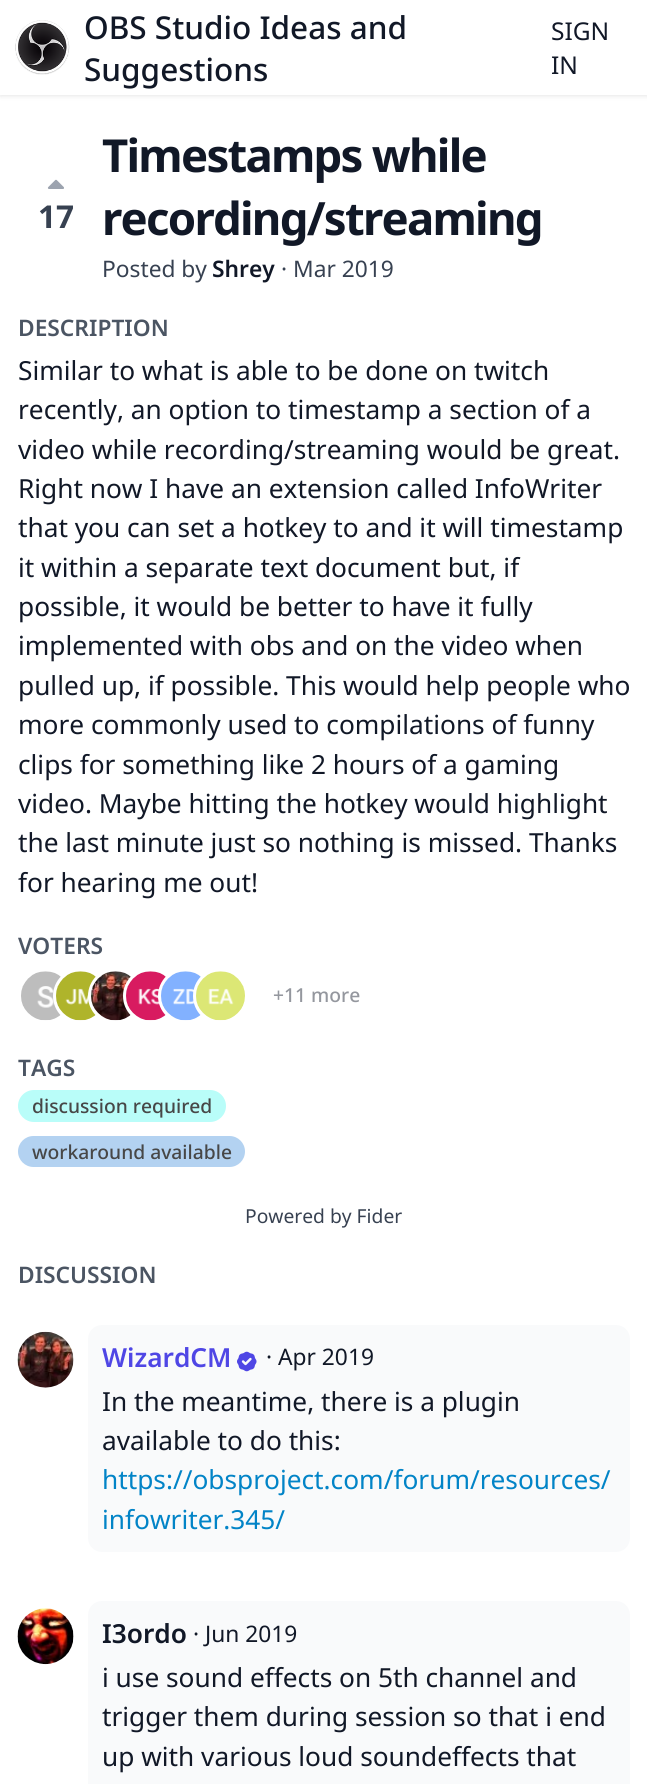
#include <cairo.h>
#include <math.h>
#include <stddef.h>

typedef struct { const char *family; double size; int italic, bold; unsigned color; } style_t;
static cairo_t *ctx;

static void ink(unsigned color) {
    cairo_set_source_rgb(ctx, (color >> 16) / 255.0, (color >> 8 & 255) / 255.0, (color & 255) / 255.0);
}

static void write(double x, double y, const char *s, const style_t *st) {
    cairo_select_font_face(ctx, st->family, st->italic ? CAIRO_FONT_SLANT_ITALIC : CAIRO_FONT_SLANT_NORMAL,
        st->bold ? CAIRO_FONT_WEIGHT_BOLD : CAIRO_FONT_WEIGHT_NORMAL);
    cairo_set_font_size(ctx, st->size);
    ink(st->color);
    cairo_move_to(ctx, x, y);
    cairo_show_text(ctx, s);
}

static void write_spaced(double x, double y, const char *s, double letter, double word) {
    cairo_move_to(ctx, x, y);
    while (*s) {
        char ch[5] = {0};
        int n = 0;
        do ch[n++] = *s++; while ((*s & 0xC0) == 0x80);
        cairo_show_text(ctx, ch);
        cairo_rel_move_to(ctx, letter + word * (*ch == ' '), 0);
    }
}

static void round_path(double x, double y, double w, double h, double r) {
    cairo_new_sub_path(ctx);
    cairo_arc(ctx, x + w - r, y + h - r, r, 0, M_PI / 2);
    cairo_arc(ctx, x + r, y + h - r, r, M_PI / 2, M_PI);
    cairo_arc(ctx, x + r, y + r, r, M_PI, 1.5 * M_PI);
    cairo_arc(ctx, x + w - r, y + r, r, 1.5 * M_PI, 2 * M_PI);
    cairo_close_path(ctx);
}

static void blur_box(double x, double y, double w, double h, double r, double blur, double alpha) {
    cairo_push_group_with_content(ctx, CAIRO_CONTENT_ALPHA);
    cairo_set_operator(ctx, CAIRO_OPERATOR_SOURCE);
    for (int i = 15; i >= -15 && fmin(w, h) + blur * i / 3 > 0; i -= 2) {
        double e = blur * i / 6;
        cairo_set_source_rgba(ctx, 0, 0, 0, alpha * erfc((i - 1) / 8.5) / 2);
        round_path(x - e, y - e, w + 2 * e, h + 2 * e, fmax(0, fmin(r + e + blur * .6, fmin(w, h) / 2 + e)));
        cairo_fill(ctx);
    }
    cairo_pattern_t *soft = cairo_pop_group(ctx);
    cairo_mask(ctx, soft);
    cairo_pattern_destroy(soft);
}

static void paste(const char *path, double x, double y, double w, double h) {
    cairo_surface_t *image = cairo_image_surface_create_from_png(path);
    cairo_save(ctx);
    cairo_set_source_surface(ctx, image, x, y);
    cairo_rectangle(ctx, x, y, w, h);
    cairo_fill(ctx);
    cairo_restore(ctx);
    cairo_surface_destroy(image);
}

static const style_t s1 = {"Noto Sans Medium", 31.5, 0, 0, 0x111827};
static const style_t s2 = {"Noto Sans", 24.5, 0, 0, 0x111827};
static const style_t s3 = {"Noto Sans", 31.5, 0, 1, 0x374151};
static const style_t s4 = {"Noto Sans", 22.75, 0, 0, 0x374151};
static const style_t s5 = {"Noto Sans SemiBold", 22.75, 0, 0, 0x111827};
static const style_t s6 = {"Noto Sans SemiBold", 22.75, 0, 0, 0x4b5563};
static const style_t s7 = {"Noto Sans", 26.25, 0, 0, 0x111827};
static const style_t s8 = {"Noto Sans Medium", 19.25, 0, 0, 0x94979e};
static const style_t s9 = {"Noto Sans Medium", 19.25, 0, 0, 0x474747};
static const style_t s10 = {"Noto Sans", 19.25, 0, 0, 0x374151};
static const style_t s11 = {"Noto Sans SemiBold", 26.25, 0, 0, 0x4f46e5};
static const style_t s12 = {"Noto Sans", 22.75, 0, 0, 0x111827};
static const style_t s13 = {"Noto Sans", 26.25, 0, 0, 0x0284c7};
static const style_t s14 = {"Noto Sans SemiBold", 26.25, 0, 0, 0x111827};

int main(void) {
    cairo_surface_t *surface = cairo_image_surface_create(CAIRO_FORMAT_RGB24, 647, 1784);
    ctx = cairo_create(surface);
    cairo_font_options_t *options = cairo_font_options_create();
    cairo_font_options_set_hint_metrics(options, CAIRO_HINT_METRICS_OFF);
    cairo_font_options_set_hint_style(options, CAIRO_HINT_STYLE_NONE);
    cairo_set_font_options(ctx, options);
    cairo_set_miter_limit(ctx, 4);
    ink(0xffffff);
    cairo_paint(ctx);
    cairo_save(ctx);
    cairo_set_fill_rule(ctx, CAIRO_FILL_RULE_EVEN_ODD);
    cairo_new_path(ctx);
    cairo_move_to(ctx, 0, 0);
    cairo_line_to(ctx, 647, 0);
    cairo_line_to(ctx, 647, 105);
    cairo_line_to(ctx, 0, 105);
    cairo_close_path(ctx);
    cairo_move_to(ctx, 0, 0);
    cairo_line_to(ctx, 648, 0);
    cairo_line_to(ctx, 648, 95);
    cairo_line_to(ctx, 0, 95);
    cairo_close_path(ctx);
    cairo_clip(ctx);
    ink(0x000000);
    blur_box(0, 2, 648, 94, 0, 2.5, 0.1);
    cairo_restore(ctx);
    paste("pic1.png", 15, 20, 55, 55);
    write(84, 39, "OBS Studio Ideas and", &s1);
    write(84, 81, "Suggestions", &s1);
    write(551, 40, "SIGN", &s2);
    write(551, 74, "IN", &s2);
    paste("pic2.png", 47, 179, 17, 10);
    write(38, 228, "17", &s3);
    cairo_set_font_size(ctx, 45.5);
    ink(0x111827);
    write_spaced(102, 172, "Timestamps while", -1.75, 0);
    write_spaced(102, 235, "recording/streaming", -1.75, 0);
    write(102, 277, "Posted by", &s4);
    write(212, 277, "Shrey", &s5);
    write(281, 277, "· Mar 2019", &s4);
    write(18, 336, "DESCRIPTION", &s6);
    write(18, 380, "Similar to what is able to be done on twitch", &s7);
    write(18, 419, "recently, an option to timestamp a section of a", &s7);
    write(18, 459, "video while recording/streaming would be great.", &s7);
    write(18, 498, "Right now I have an extension called InfoWriter", &s7);
    write(18, 537, "that you can set a hotkey to and it will timestamp", &s7);
    write(18, 577, "it within a separate text document but, if", &s7);
    write(18, 616, "possible, it would be better to have it fully", &s7);
    write(18, 655, "implemented with obs and on the video when", &s7);
    write(18, 695, "pulled up, if possible. This would help people who", &s7);
    write(18, 734, "more commonly used to compilations of funny", &s7);
    write(18, 774, "clips for something like 2 hours of a gaming", &s7);
    write(18, 813, "video. Maybe hitting the hotkey would highlight", &s7);
    write(18, 852, "the last minute just so nothing is missed. Thanks", &s7);
    write(18, 892, "for hearing me out!", &s7);
    write(18, 954, "VOTERS", &s6);
    paste("pic3.png", 21, 971, 43, 50);
    cairo_arc(ctx, 81, 996, 26, 0, 2 * M_PI);
    ink(0xffffff);
    cairo_set_line_width(ctx, 4);
    cairo_stroke(ctx);
    paste("pic4.png", 56, 971, 43, 50);
    cairo_arc(ctx, 116, 996, 26, 0, 2 * M_PI);
    cairo_stroke(ctx);
    paste("pic5.png", 91, 971, 43, 50);
    cairo_arc(ctx, 151, 996, 26, 0, 2 * M_PI);
    cairo_stroke(ctx);
    paste("pic6.png", 126, 971, 43, 50);
    cairo_arc(ctx, 186, 996, 26, 0, 2 * M_PI);
    cairo_stroke(ctx);
    paste("pic7.png", 161, 971, 43, 50);
    cairo_arc(ctx, 221, 996, 26, 0, 2 * M_PI);
    cairo_stroke(ctx);
    paste("pic8.png", 196, 971, 49, 50);
    write(273, 1002, "+11 more", &s8);
    write(18, 1076, "TAGS", &s6);
    ink(0xb9fdf9);
    round_path(18, 1090, 208, 32, 16);
    cairo_fill(ctx);
    write(32, 1113, "discussion required", &s9);
    ink(0xb3d2f1);
    round_path(18, 1136, 227, 31, 15.5);
    cairo_fill(ctx);
    write(32, 1159, "workaround available", &s9);
    write(245, 1223, "Powered by Fider", &s10);
    write(18, 1283, "DISCUSSION", &s6);
    paste("pic9.png", 17, 1331, 57, 57);
    ink(0xf9fafb);
    round_path(88, 1325, 542, 227, 14);
    cairo_fill(ctx);
    write(102, 1367, "WizardCM", &s11);
    paste("pic10.png", 237, 1351, 20, 21);
    write(266, 1365, "· Apr 2019", &s12);
    write(102, 1411, "In the meantime, there is a plugin", &s7);
    write(102, 1450, "available to do this:", &s7);
    write(102, 1489, "https://obsproject.com/forum/resources/", &s13);
    write(102, 1529, "infowriter.345/", &s13);
    paste("pic11.png", 17, 1608, 57, 57);
    ink(0xf9fafb);
    round_path(88, 1601, 542, 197, 14);
    cairo_fill(ctx);
    write(102, 1643, "I3ordo", &s14);
    write(193, 1642, "· Jun 2019", &s12);
    write(102, 1687, "i use sound effects on 5th channel and", &s7);
    write(102, 1726, "trigger them during session so that i end", &s7);
    write(102, 1766, "up with various loud soundeffects that", &s7);
    cairo_surface_write_to_png(surface, "screenshot.png");
    cairo_font_options_destroy(options);
    cairo_destroy(ctx);
    cairo_surface_destroy(surface);
    return 0;
}
